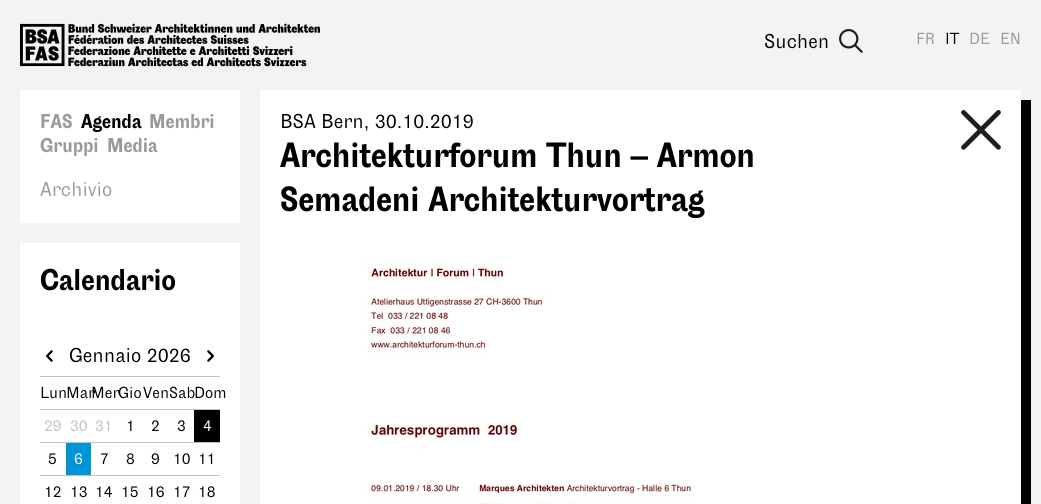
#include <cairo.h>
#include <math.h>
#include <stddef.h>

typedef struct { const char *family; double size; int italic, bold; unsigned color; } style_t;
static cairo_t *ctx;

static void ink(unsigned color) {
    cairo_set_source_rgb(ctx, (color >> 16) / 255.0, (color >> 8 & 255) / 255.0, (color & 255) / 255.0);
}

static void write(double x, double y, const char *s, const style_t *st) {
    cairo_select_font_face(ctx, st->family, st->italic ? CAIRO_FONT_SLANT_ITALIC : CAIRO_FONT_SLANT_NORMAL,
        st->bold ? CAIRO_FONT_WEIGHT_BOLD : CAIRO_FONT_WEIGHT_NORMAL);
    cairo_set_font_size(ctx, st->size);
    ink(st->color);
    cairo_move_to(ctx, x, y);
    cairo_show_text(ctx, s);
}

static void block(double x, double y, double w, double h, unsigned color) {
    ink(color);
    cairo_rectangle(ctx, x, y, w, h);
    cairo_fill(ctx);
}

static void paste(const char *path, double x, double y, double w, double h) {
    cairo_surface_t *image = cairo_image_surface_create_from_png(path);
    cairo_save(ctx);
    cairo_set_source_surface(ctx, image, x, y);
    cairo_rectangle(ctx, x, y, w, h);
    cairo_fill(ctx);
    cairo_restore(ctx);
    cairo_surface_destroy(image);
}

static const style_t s1 = {"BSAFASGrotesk", 16, 0, 0, 0x9a9a9a};
static const style_t s2 = {"BSAFASGrotesk", 16, 0, 0, 0x000000};
static const style_t s3 = {"BSAFASGrotesk", 20, 0, 1, 0x9a9a9a};
static const style_t s4 = {"BSAFASGrotesk", 20, 0, 1, 0x000000};
static const style_t s5 = {"BSAFASGrotesk", 20, 0, 0, 0x9a9a9a};
static const style_t s6 = {"BSAFASGrotesk", 20, 0, 0, 0x000000};
static const style_t s7 = {"BSAFASGrotesk", 35, 0, 1, 0x000000};
static const style_t s8 = {"BSAFASGrotesk", 30, 0, 1, 0x000000};
static const style_t s9 = {"BSAFASGrotesk", 16, 0, 0, 0xc1c1c1};
static const style_t s10 = {"BSAFASGrotesk", 16, 0, 0, 0xffffff};

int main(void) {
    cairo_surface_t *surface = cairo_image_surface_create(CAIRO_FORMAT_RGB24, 1041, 504);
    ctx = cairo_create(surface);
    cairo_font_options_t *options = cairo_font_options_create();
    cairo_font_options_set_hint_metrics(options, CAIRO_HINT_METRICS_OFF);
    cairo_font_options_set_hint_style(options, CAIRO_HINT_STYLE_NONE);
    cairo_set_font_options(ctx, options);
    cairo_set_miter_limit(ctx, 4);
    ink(0xf3f3f3);
    cairo_paint(ctx);
    paste("pic1.png", 20, 23, 300, 44);
    write(916, 44, "FR", &s1);
    write(945, 44, "IT", &s2);
    write(969, 44, "DE", &s1);
    write(1000, 44, "EN", &s1);
    block(20, 90, 220, 133, 0xffffff);
    write(40, 128, "FAS", &s3);
    write(81, 128, "Agenda", &s4);
    write(149, 128, "Membri", &s3);
    write(40, 152, "Gruppi", &s3);
    write(107, 152, "Media", &s3);
    write(40, 196, "Archivio", &s5);
    write(764, 48, "Suchen", &s6);
    paste("pic2.png", 839, 29, 24, 24);
    cairo_new_path(ctx);
    cairo_move_to(ctx, 270, 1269);
    cairo_line_to(ctx, 270, 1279);
    cairo_line_to(ctx, 1031, 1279);
    cairo_line_to(ctx, 1031, 100);
    cairo_line_to(ctx, 1021, 100);
    cairo_line_to(ctx, 1021, 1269);
    cairo_close_path(ctx);
    cairo_fill(ctx);
    block(260, 90, 761, 414, 0xffffff);
    write(280, 128, "BSA Bern, 30.10.2019", &s6);
    paste("pic3.png", 961, 110, 40, 40);
    write(280, 167, "Architekturforum Thun – Armon", &s7);
    write(280, 211, "Semadeni Architekturvortrag", &s7);
    paste("pic4.png", 364, 259, 332, 245);
    block(20, 243, 220, 261, 0xffffff);
    write(40, 290, "Calendario", &s8);
    paste("pic5.png", 46, 350, 7, 12);
    write(69, 362, "Gennaio 2026", &s6);
    paste("pic6.png", 207, 350, 7, 12);
    block(40, 376, 180, 1, 0xc1c1c1);
    block(40, 409, 180, 1, 0xc1c1c1);
    write(40, 398, "Lun", &s2);
    write(66, 398, "Mar", &s2);
    write(91, 398, "Mer", &s2);
    write(118, 398, "Gio", &s2);
    write(143, 398, "Ven", &s2);
    write(169, 398, "Sab", &s2);
    write(194, 398, "Dom", &s2);
    block(40, 442, 180, 1, 0xc1c1c1);
    write(44, 431, "29", &s9);
    write(70, 431, "30", &s9);
    write(95, 431, "31", &s9);
    write(126, 431, "1", &s2);
    write(151, 431, "2", &s2);
    write(177, 431, "3", &s2);
    block(194, 410, 26, 32, 0x000000);
    write(203, 431, "4", &s10);
    block(40, 475, 180, 1, 0xc1c1c1);
    write(48, 464, "5", &s2);
    block(66, 443, 25, 32, 0x0096d5);
    write(74, 464, "6", &s10);
    write(100, 464, "7", &s2);
    write(126, 464, "8", &s2);
    write(151, 464, "9", &s2);
    write(173, 464, "10", &s2);
    write(198, 464, "11", &s2);
    write(44, 497, "12", &s2);
    write(70, 497, "13", &s2);
    write(95, 497, "14", &s2);
    write(121, 497, "15", &s2);
    write(147, 497, "16", &s2);
    write(173, 497, "17", &s2);
    write(198, 497, "18", &s2);
    cairo_surface_write_to_png(surface, "screenshot.png");
    cairo_font_options_destroy(options);
    cairo_destroy(ctx);
    cairo_surface_destroy(surface);
    return 0;
}
